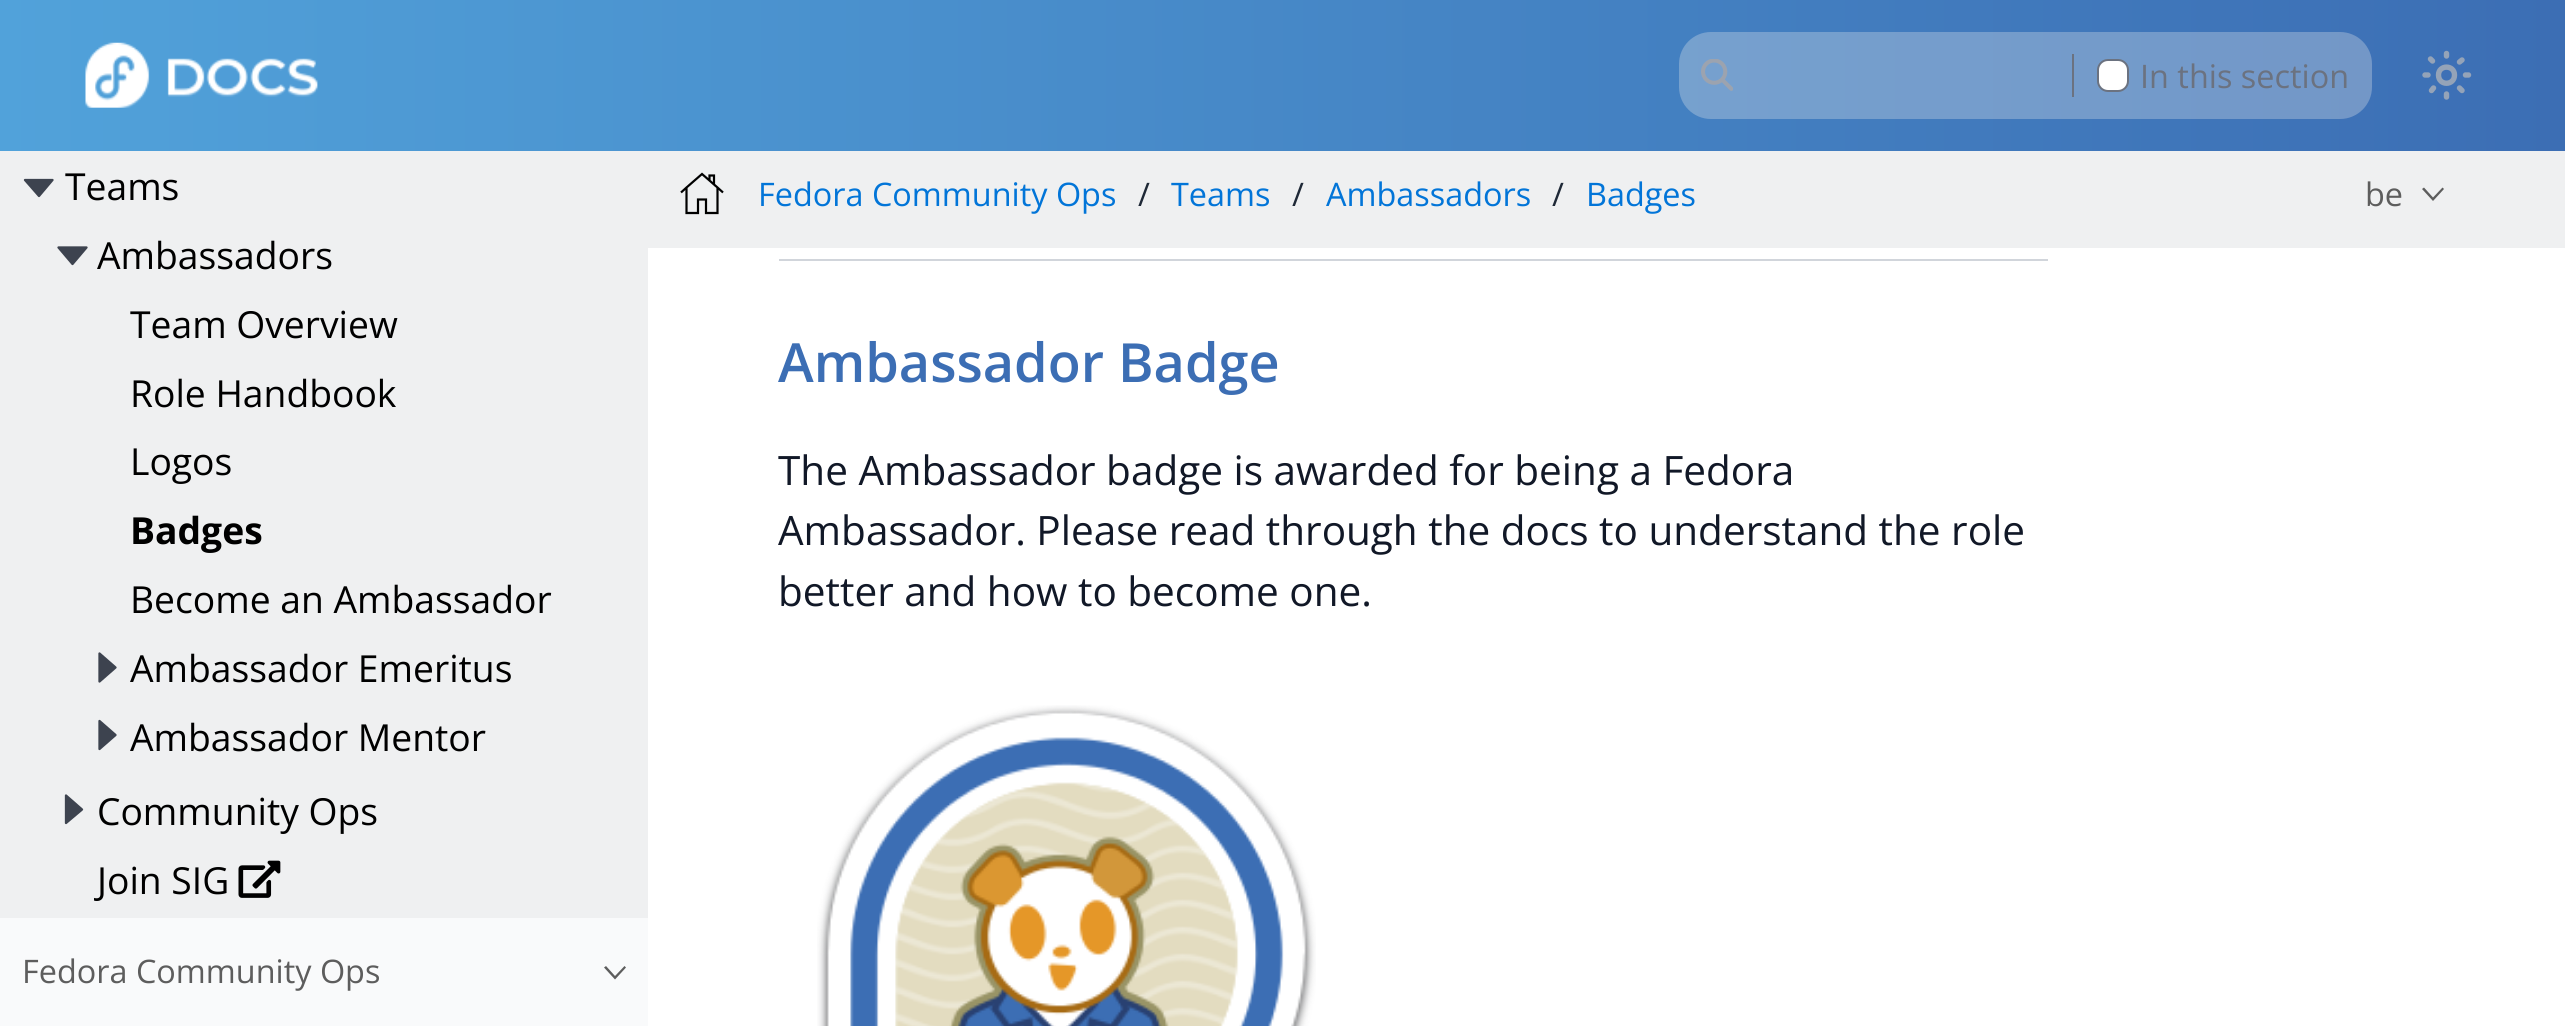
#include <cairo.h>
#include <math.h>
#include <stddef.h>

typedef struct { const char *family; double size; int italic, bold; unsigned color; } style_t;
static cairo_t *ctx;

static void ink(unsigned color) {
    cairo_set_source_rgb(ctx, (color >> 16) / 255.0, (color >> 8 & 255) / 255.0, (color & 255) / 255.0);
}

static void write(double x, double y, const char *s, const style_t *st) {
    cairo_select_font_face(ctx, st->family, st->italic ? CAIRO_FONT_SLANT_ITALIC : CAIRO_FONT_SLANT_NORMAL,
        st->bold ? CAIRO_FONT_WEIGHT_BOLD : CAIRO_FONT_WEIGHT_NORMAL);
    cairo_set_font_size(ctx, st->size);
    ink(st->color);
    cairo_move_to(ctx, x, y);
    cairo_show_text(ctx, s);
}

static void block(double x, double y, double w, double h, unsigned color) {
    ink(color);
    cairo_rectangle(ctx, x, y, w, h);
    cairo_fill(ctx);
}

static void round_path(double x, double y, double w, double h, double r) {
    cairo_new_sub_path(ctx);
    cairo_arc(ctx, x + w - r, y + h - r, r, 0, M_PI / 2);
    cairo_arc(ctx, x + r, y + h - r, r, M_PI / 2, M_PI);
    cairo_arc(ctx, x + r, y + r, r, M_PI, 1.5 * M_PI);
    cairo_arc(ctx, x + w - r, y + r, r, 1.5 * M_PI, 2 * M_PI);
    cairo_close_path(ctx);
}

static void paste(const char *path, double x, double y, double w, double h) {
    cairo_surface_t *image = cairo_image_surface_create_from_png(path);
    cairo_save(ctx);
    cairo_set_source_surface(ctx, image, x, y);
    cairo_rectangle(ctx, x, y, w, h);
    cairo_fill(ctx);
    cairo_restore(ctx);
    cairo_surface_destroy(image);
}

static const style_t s1 = {"Open Sans", 32.4, 0, 0, 0x6b7280};
static const style_t s2 = {"Open Sans", 37.25, 0, 0, 0x000000};
static const style_t s3 = {"Open Sans", 37.25, 0, 1, 0x000000};
static const style_t s4 = {"Open Sans", 32.4, 0, 0, 0x5d5d5d};
static const style_t s5 = {"Open Sans", 32.4, 0, 0, 0x0275d8};
static const style_t s6 = {"Open Sans", 32.4, 0, 0, 0x1f2937};
static const style_t s7 = {"Open Sans SemiBold", 54, 0, 0, 0x3c6eb4};
static const style_t s8 = {"Open Sans", 40.5, 0, 0, 0x111827};

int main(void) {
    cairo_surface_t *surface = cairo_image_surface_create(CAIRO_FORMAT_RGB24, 2565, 1026);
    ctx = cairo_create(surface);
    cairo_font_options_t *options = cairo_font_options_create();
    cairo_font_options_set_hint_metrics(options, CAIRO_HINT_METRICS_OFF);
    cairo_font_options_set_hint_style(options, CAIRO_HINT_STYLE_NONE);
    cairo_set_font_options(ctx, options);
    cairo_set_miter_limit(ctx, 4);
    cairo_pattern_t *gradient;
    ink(0xffffff);
    cairo_paint(ctx);
    gradient = cairo_pattern_create_linear(2565, 75, 0, 75);
    cairo_pattern_add_color_stop_rgba(gradient, 0, 0.235, 0.431, 0.706, 1);
    cairo_pattern_add_color_stop_rgba(gradient, 1, 0.318, 0.635, 0.855, 1);
    cairo_set_source(ctx, gradient);
    cairo_pattern_destroy(gradient);
    cairo_rectangle(ctx, 0, 0, 2565, 151);
    cairo_fill(ctx);
    paste("pic1.png", 85, 42, 233, 66);
    cairo_set_source_rgba(ctx, 0.937, 0.937, 0.937, 0.3);
    round_path(1679, 32, 693, 87, 32);
    cairo_fill(ctx);
    paste("pic2.png", 1701, 59, 32, 32);
    block(2072, 54, 2, 43, 0x6b7280);
    ink(0xffffff);
    round_path(2098, 60, 30, 31, 10);
    cairo_fill_preserve(ctx);
    ink(0x6b7280);
    cairo_stroke(ctx);
    write(2140, 88, "In this section", &s1);
    cairo_new_path(ctx);
    cairo_move_to(ctx, 2454.5, 75);
    cairo_curve_to(ctx, 2454.5, 86, 2438.5, 86, 2438.5, 75);
    cairo_curve_to(ctx, 2438.5, 64.5, 2454.5, 64.5, 2454.5, 75);
    cairo_close_path(ctx);
    cairo_move_to(ctx, 2446.5, 53.5);
    cairo_line_to(ctx, 2446.5, 56);
    cairo_move_to(ctx, 2462, 60);
    cairo_line_to(ctx, 2459.5, 62);
    cairo_move_to(ctx, 2468.5, 75);
    cairo_line_to(ctx, 2465.5, 75);
    cairo_move_to(ctx, 2462, 90.5);
    cairo_line_to(ctx, 2459.5, 88);
    cairo_move_to(ctx, 2446.5, 97);
    cairo_line_to(ctx, 2446.5, 94);
    cairo_move_to(ctx, 2431.5, 90.5);
    cairo_line_to(ctx, 2433.5, 88);
    cairo_move_to(ctx, 2425, 75);
    cairo_line_to(ctx, 2428, 75);
    cairo_move_to(ctx, 2430.5, 59);
    cairo_line_to(ctx, 2432.5, 61);
    ink(0x94a3b8);
    cairo_set_line_width(ctx, 5.4);
    cairo_set_line_cap(ctx, CAIRO_LINE_CAP_ROUND);
    cairo_set_line_join(ctx, CAIRO_LINE_JOIN_ROUND);
    cairo_stroke(ctx);
    block(0, 151, 648, 767, 0xeff0f1);
    ink(0x3d434f);
    cairo_new_path(ctx);
    cairo_move_to(ctx, 52.5, 180);
    cairo_line_to(ctx, 39, 196);
    cairo_line_to(ctx, 25, 180);
    cairo_close_path(ctx);
    cairo_fill_preserve(ctx);
    cairo_set_line_width(ctx, 2.3);
    cairo_stroke(ctx);
    write(65, 200, "Teams", &s2);
    ink(0x3d434f);
    cairo_new_path(ctx);
    cairo_move_to(ctx, 86.5, 247.5);
    cairo_line_to(ctx, 72.5, 264);
    cairo_line_to(ctx, 58.5, 247.5);
    cairo_close_path(ctx);
    cairo_fill_preserve(ctx);
    cairo_stroke(ctx);
    write(97, 269, "Ambassadors", &s2);
    write(130, 338, "Team Overview", &s2);
    write(130, 407, "Role Handbook", &s2);
    write(130, 475, "Logos", &s2);
    write(130, 544, "Badges", &s3);
    write(130, 613, "Become an Ambassador", &s2);
    ink(0x3d434f);
    cairo_new_path(ctx);
    cairo_move_to(ctx, 99.5, 653.5);
    cairo_line_to(ctx, 115.5, 667.5);
    cairo_line_to(ctx, 99.5, 681.5);
    cairo_close_path(ctx);
    cairo_fill_preserve(ctx);
    cairo_stroke(ctx);
    write(130, 682, "Ambassador Emeritus", &s2);
    ink(0x3d434f);
    cairo_new_path(ctx);
    cairo_move_to(ctx, 99.5, 721);
    cairo_line_to(ctx, 115.5, 735);
    cairo_line_to(ctx, 99.5, 749);
    cairo_close_path(ctx);
    cairo_fill_preserve(ctx);
    cairo_stroke(ctx);
    write(130, 751, "Ambassador Mentor", &s2);
    ink(0x3d434f);
    cairo_new_path(ctx);
    cairo_move_to(ctx, 66, 795.5);
    cairo_line_to(ctx, 82, 809.5);
    cairo_line_to(ctx, 66, 823);
    cairo_close_path(ctx);
    cairo_fill_preserve(ctx);
    cairo_stroke(ctx);
    write(97, 825, "Community Ops", &s2);
    write(97, 894, "Join SIG", &s2);
    paste("pic3.png", 238, 860, 43, 38);
    block(0, 918, 648, 108, 0xf9fafb);
    write(22, 983, "Fedora Community Ops", &s4);
    cairo_new_path(ctx);
    cairo_move_to(ctx, 606, 966);
    cairo_line_to(ctx, 604, 967.5);
    cairo_line_to(ctx, 615, 979.5);
    cairo_line_to(ctx, 626, 967.5);
    cairo_line_to(ctx, 624.5, 966);
    cairo_line_to(ctx, 615, 976);
    cairo_close_path(ctx);
    cairo_fill(ctx);
    block(648, 151, 1917, 97, 0xeff0f1);
    cairo_new_path(ctx);
    cairo_move_to(ctx, 702, 174);
    cairo_line_to(ctx, 686.5, 187.5);
    cairo_line_to(ctx, 686.5, 213);
    cairo_line_to(ctx, 698, 213);
    cairo_line_to(ctx, 698, 199.5);
    cairo_line_to(ctx, 706, 199.5);
    cairo_line_to(ctx, 706, 213);
    cairo_line_to(ctx, 717.5, 213);
    cairo_line_to(ctx, 717.5, 187.5);
    cairo_close_path(ctx);
    cairo_move_to(ctx, 709.5, 180.5);
    cairo_line_to(ctx, 709.5, 175.5);
    cairo_line_to(ctx, 714, 175.5);
    cairo_line_to(ctx, 714, 184.5);
    cairo_close_path(ctx);
    cairo_move_to(ctx, 686.5, 187.5);
    cairo_line_to(ctx, 681, 192.5);
    cairo_move_to(ctx, 723, 192.5);
    cairo_line_to(ctx, 717.5, 187.5);
    ink(0x000000);
    cairo_set_line_width(ctx, 2.2);
    cairo_set_line_cap(ctx, CAIRO_LINE_CAP_BUTT);
    cairo_set_line_join(ctx, CAIRO_LINE_JOIN_MITER);
    cairo_stroke(ctx);
    write(758, 206, "Fedora Community Ops", &s5);
    write(1138, 206, "/", &s6);
    write(1171, 206, "Teams", &s5);
    write(1292, 206, "/", &s6);
    write(1326, 206, "Ambassadors", &s5);
    write(1552, 206, "/", &s6);
    write(1586, 206, "Badges", &s5);
    ink(0x5d5d5d);
    cairo_new_path(ctx);
    cairo_move_to(ctx, 2424, 187.5);
    cairo_line_to(ctx, 2422, 189);
    cairo_line_to(ctx, 2433, 201);
    cairo_line_to(ctx, 2444, 189);
    cairo_line_to(ctx, 2442.5, 187.5);
    cairo_line_to(ctx, 2433, 197.5);
    cairo_close_path(ctx);
    cairo_fill(ctx);
    write(2365, 206, "be", &s4);
    block(779, 259, 1269, 2, 0xd1d5db);
    write(778, 382, "Ambassador Badge", &s7);
    write(778, 485, "The Ambassador badge is awarded for being a Fedora", &s8);
    write(778, 545, "Ambassador. Please read through the docs to understand the role", &s8);
    write(778, 606, "better and how to become one.", &s8);
    paste("pic4.png", 817, 705, 499, 321);
    cairo_surface_write_to_png(surface, "screenshot.png");
    cairo_font_options_destroy(options);
    cairo_destroy(ctx);
    cairo_surface_destroy(surface);
    return 0;
}
